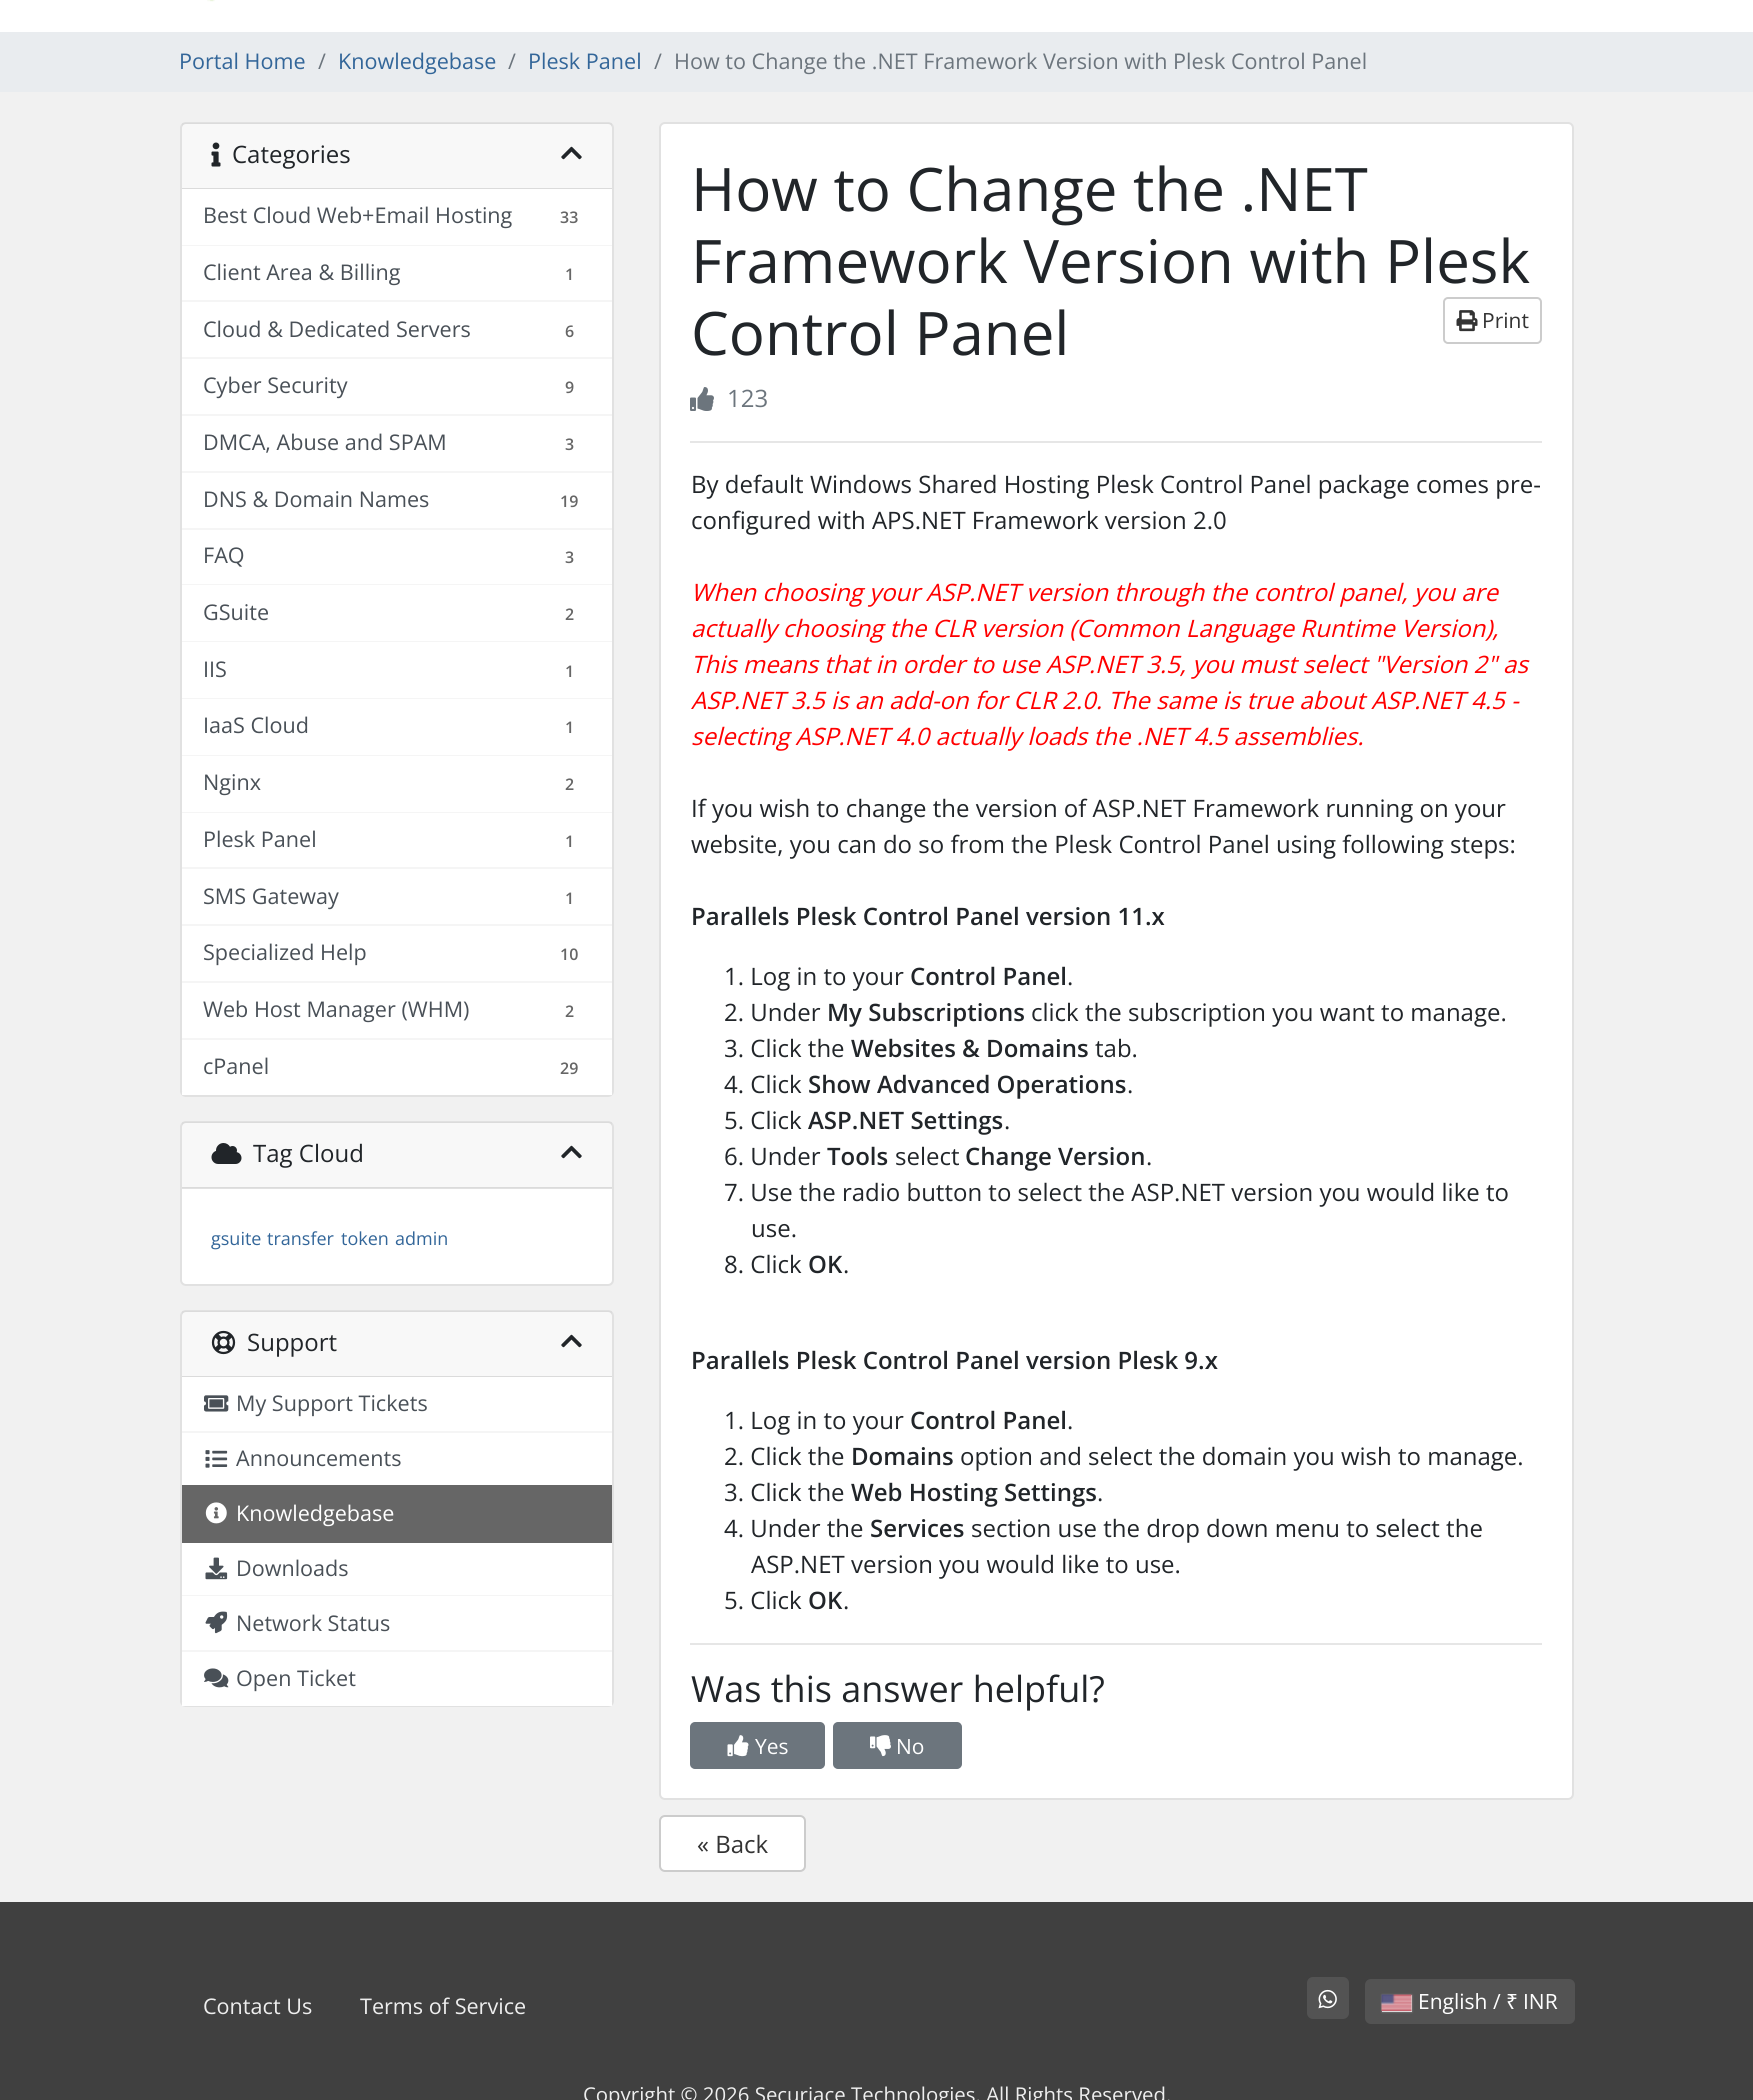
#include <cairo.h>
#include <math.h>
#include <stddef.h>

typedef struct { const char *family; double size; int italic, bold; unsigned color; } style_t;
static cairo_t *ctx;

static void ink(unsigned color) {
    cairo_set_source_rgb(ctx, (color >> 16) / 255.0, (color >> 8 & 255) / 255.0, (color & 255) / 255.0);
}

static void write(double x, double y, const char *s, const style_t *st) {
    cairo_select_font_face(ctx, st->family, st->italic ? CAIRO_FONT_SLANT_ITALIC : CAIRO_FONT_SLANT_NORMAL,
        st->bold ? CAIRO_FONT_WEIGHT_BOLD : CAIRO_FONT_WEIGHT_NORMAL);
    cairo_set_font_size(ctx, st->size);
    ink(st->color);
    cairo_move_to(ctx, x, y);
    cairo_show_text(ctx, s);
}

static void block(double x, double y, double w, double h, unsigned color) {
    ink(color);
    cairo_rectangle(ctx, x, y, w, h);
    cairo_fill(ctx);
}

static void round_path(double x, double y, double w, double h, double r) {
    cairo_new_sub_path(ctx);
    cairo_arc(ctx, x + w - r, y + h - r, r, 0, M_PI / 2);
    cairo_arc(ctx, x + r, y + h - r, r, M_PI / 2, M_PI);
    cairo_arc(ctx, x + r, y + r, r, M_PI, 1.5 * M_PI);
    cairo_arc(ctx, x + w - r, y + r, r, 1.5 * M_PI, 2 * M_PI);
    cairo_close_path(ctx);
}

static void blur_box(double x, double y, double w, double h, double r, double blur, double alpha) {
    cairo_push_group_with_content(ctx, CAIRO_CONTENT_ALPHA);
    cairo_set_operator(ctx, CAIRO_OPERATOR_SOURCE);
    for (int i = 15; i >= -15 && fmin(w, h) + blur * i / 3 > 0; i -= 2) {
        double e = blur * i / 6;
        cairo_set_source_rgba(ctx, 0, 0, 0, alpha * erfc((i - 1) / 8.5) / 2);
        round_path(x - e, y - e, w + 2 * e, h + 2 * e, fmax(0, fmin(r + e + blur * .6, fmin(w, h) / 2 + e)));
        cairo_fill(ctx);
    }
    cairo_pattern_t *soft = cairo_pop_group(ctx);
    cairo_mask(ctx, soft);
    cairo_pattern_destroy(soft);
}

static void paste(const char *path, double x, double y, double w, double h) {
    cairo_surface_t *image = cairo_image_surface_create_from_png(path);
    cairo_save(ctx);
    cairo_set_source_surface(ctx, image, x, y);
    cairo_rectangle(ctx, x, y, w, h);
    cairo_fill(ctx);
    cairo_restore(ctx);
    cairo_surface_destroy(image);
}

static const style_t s1 = {"Open Sans", 21.6, 0, 0, 0x336699};
static const style_t s2 = {"Open Sans", 21.6, 0, 0, 0x6c757d};
static const style_t s3 = {"Open Sans", 24, 0, 0, 0x212529};
static const style_t s4 = {"Open Sans", 21.6, 0, 0, 0x495057};
static const style_t s5 = {"Open Sans SemiBold", 16, 0, 0, 0x666666};
static const style_t s6 = {"Open Sans", 18, 0, 0, 0x336699};
static const style_t s7 = {"Open Sans", 21.6, 0, 0, 0xffffff};
static const style_t s8 = {"Open Sans", 60, 0, 0, 0x212529};
static const style_t s9 = {"Open Sans", 21, 0, 0, 0x333333};
static const style_t s10 = {"Open Sans", 24, 0, 0, 0x6c757d};
static const style_t s11 = {"Open Sans", 24, 1, 0, 0xff0000};
static const style_t s12 = {"Open Sans SemiBold", 24, 0, 0, 0x212529};
static const style_t s13 = {"Open Sans", 36, 0, 0, 0x212529};
static const style_t s14 = {"Open Sans", 21, 0, 0, 0xffffff};
static const style_t s15 = {"Open Sans", 24, 0, 0, 0x333333};
static const style_t s16 = {"Open Sans", 21.6, 0, 0, 0xeeeeee};
static const style_t s17 = {"Noto Sans", 21, 0, 0, 0xffffff};
static const style_t s18 = {"Open Sans", 20.4, 0, 0, 0xeeeeee};

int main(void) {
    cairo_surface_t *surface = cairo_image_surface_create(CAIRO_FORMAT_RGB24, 1753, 2100);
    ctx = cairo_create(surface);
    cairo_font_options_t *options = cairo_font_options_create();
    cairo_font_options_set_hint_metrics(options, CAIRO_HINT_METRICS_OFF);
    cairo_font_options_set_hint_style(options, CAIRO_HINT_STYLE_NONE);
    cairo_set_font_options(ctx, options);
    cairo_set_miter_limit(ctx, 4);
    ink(0xf1f1f1);
    cairo_paint(ctx);
    block(0, 0, 1753, 32, 0xffffff);
    paste("pic1.png", 207, 0, 8, 2);
    block(0, 32, 1753, 60, 0xe9ecef);
    write(179, 69, "Portal Home", &s1);
    write(318, 69, "/", &s2);
    write(338, 69, "Knowledgebase", &s1);
    write(508, 69, "/", &s2);
    write(528, 69, "Plesk Panel", &s1);
    write(654, 69, "/", &s2);
    write(674, 69, "How to Change the .NET Framework Version with Plesk Control Panel", &s2);
    ink(0xffffff);
    round_path(180, 122, 434, 975, 6);
    cairo_fill(ctx);
    round_path(181, 123, 432, 973, 5);
    cairo_set_source_rgba(ctx, 0, 0, 0, 0.12);
    cairo_stroke(ctx);
    cairo_set_source_rgba(ctx, 0, 0, 0, 0.03);
    cairo_rectangle(ctx, 182, 123, 430, 66);
    cairo_fill(ctx);
    cairo_set_source_rgba(ctx, 0, 0, 0, 0.12);
    cairo_rectangle(ctx, 182, 188, 430, 1);
    cairo_fill(ctx);
    paste("pic2.png", 211, 142, 10, 25);
    write(232, 163, "Categories", &s3);
    paste("pic3.png", 561, 146, 21, 14);
    block(182, 245, 430, 1, 0xf5f5f5);
    write(203, 223, "Best Cloud Web+Email Hosting", &s4);
    write(560, 223, "33", &s5);
    block(182, 300, 430, 2, 0xf5f5f5);
    write(203, 280, "Client Area & Billing", &s4);
    write(565, 280, "1", &s5);
    block(182, 357, 430, 2, 0xf5f5f5);
    write(203, 337, "Cloud & Dedicated Servers", &s4);
    write(565, 337, "6", &s5);
    block(182, 414, 430, 2, 0xf5f5f5);
    write(203, 393, "Cyber Security", &s4);
    write(565, 393, "9", &s5);
    block(182, 471, 430, 2, 0xf5f5f5);
    write(203, 450, "DMCA, Abuse and SPAM", &s4);
    write(565, 450, "3", &s5);
    block(182, 528, 430, 2, 0xf5f5f5);
    write(203, 507, "DNS & Domain Names", &s4);
    write(560, 507, "19", &s5);
    block(182, 584, 430, 1, 0xf5f5f5);
    write(203, 563, "FAQ", &s4);
    write(565, 563, "3", &s5);
    block(182, 641, 430, 1, 0xf5f5f5);
    write(203, 620, "GSuite", &s4);
    write(565, 620, "2", &s5);
    block(182, 698, 430, 1, 0xf5f5f5);
    write(203, 677, "IIS", &s4);
    write(565, 677, "1", &s5);
    block(182, 755, 430, 1, 0xf5f5f5);
    write(203, 733, "IaaS Cloud", &s4);
    write(565, 733, "1", &s5);
    block(182, 812, 430, 1, 0xf5f5f5);
    write(203, 790, "Nginx", &s4);
    write(565, 790, "2", &s5);
    block(182, 867, 430, 2, 0xf5f5f5);
    write(203, 847, "Plesk Panel", &s4);
    write(565, 847, "1", &s5);
    block(182, 924, 430, 2, 0xf5f5f5);
    write(203, 904, "SMS Gateway", &s4);
    write(565, 904, "1", &s5);
    block(182, 981, 430, 2, 0xf5f5f5);
    write(203, 960, "Specialized Help", &s4);
    write(560, 960, "10", &s5);
    block(182, 1038, 430, 2, 0xf5f5f5);
    write(203, 1017, "Web Host Manager (WHM)", &s4);
    write(565, 1017, "2", &s5);
    block(182, 1092, 430, 3, 0xffffff);
    write(203, 1074, "cPanel", &s4);
    write(560, 1074, "29", &s5);
    ink(0xffffff);
    round_path(180, 1121, 434, 165, 6);
    cairo_fill(ctx);
    round_path(181, 1122, 432, 163, 5);
    cairo_set_source_rgba(ctx, 0, 0, 0, 0.12);
    cairo_stroke(ctx);
    cairo_set_source_rgba(ctx, 0, 0, 0, 0.03);
    cairo_rectangle(ctx, 182, 1122, 430, 66);
    cairo_fill(ctx);
    cairo_set_source_rgba(ctx, 0, 0, 0, 0.12);
    cairo_rectangle(ctx, 182, 1187, 430, 2);
    cairo_fill(ctx);
    paste("pic4.png", 211, 1143, 31, 21);
    write(253, 1162, "Tag Cloud", &s3);
    paste("pic3.png", 561, 1145, 21, 14);
    write(211, 1245, "gsuite", &s6);
    write(267, 1245, "transfer", &s6);
    write(341, 1245, "token", &s6);
    write(395, 1245, "admin", &s6);
    ink(0xffffff);
    round_path(180, 1310, 434, 397, 6);
    cairo_fill(ctx);
    round_path(181, 1311, 432, 395, 5);
    cairo_set_source_rgba(ctx, 0, 0, 0, 0.12);
    cairo_stroke(ctx);
    cairo_set_source_rgba(ctx, 0, 0, 0, 0.03);
    cairo_rectangle(ctx, 182, 1311, 430, 66);
    cairo_fill(ctx);
    cairo_set_source_rgba(ctx, 0, 0, 0, 0.12);
    cairo_rectangle(ctx, 182, 1376, 430, 1);
    cairo_fill(ctx);
    paste("pic5.png", 211, 1330, 25, 25);
    write(247, 1351, "Support", &s3);
    paste("pic3.png", 561, 1334, 21, 14);
    block(182, 1431, 430, 2, 0xf5f5f5);
    paste("pic6.png", 204, 1395, 25, 17);
    write(236, 1411, "My Support Tickets", &s4);
    paste("pic7.png", 205, 1450, 23, 18);
    write(236, 1466, "Announcements", &s4);
    block(182, 1485, 430, 58, 0x666666);
    paste("pic8.png", 205, 1502, 22, 22);
    write(236, 1521, "Knowledgebase", &s7);
    block(182, 1595, 430, 1, 0xf5f5f5);
    paste("pic9.png", 205, 1557, 23, 23);
    write(236, 1576, "Downloads", &s4);
    block(182, 1650, 430, 2, 0xf5f5f5);
    paste("pic10.png", 205, 1611, 23, 23);
    write(236, 1631, "Network Status", &s4);
    block(182, 1702, 430, 4, 0xffffff);
    paste("pic11.png", 204, 1668, 25, 20);
    write(236, 1686, "Open Ticket", &s4);
    ink(0xffffff);
    round_path(659, 122, 915, 1678, 6);
    cairo_fill(ctx);
    round_path(660, 123, 913, 1676, 5);
    cairo_set_source_rgba(ctx, 0, 0, 0, 0.12);
    cairo_stroke(ctx);
    write(691, 211, "How to Change the .NET", &s8);
    write(691, 283, "Framework Version with Plesk", &s8);
    write(691, 355, "Control Panel", &s8);
    round_path(1444, 298, 97, 45, 4);
    ink(0xcccccc);
    cairo_stroke(ctx);
    paste("pic12.png", 1456, 310, 22, 22);
    write(1482, 328, "Print", &s9);
    paste("pic13.png", 690, 387, 24, 24);
    write(727, 407, "123", &s10);
    block(690, 441, 852, 2, 0xe6e6e6);
    write(691, 493, "By default Windows Shared Hosting Plesk Control Panel package comes pre-", &s3);
    write(691, 529, "configured with APS.NET Framework version 2.0", &s3);
    write(691, 601, "When choosing your ASP.NET version through the control panel, you are", &s11);
    write(691, 637, "actually choosing the CLR version (Common Language Runtime Version),", &s11);
    write(691, 673, "This means that in order to use ASP.NET 3.5, you must select \"Version 2\" as", &s11);
    write(691, 709, "ASP.NET 3.5 is an add-on for CLR 2.0. The same is true about ASP.NET 4.5 -", &s11);
    write(691, 745, "selecting ASP.NET 4.0 actually loads the .NET 4.5 assemblies.", &s11);
    write(691, 817, "If you wish to change the version of ASP.NET Framework running on your", &s3);
    write(691, 853, "website, you can do so from the Plesk Control Panel using following steps:", &s3);
    write(691, 925, "Parallels Plesk Control Panel version 11.x", &s12);
    write(724, 985, "1. Log in to your", &s3);
    write(910, 985, "Control Panel", &s12);
    write(1067, 985, ".", &s3);
    write(724, 1021, "2. Under", &s3);
    write(827, 1021, "My Subscriptions", &s12);
    write(1031, 1021, "click the subscription you want to manage.", &s3);
    write(724, 1057, "3. Click the", &s3);
    write(851, 1057, "Websites & Domains", &s12);
    write(1095, 1057, "tab.", &s3);
    write(724, 1093, "4. Click", &s3);
    write(808, 1093, "Show Advanced Operations", &s12);
    write(1127, 1093, ".", &s3);
    write(724, 1129, "5. Click", &s3);
    write(808, 1129, "ASP.NET Settings", &s12);
    write(1004, 1129, ".", &s3);
    write(724, 1165, "6. Under", &s3);
    write(827, 1165, "Tools", &s12);
    write(895, 1165, "select", &s3);
    write(965, 1165, "Change Version", &s12);
    write(1146, 1165, ".", &s3);
    write(724, 1201, "7. Use the radio button to select the ASP.NET version you would like to", &s3);
    write(751, 1237, "use.", &s3);
    write(724, 1273, "8. Click", &s3);
    write(808, 1273, "OK", &s12);
    write(843, 1273, ".", &s3);
    write(691, 1369, "Parallels Plesk Control Panel version Plesk 9.x", &s12);
    write(724, 1429, "1. Log in to your", &s3);
    write(910, 1429, "Control Panel", &s12);
    write(1067, 1429, ".", &s3);
    write(724, 1465, "2. Click the", &s3);
    write(851, 1465, "Domains", &s12);
    write(960, 1465, "option and select the domain you wish to manage.", &s3);
    write(724, 1501, "3. Click the", &s3);
    write(851, 1501, "Web Hosting Settings", &s12);
    write(1097, 1501, ".", &s3);
    write(724, 1537, "4. Under the", &s3);
    write(870, 1537, "Services", &s12);
    write(971, 1537, "section use the drop down menu to select the", &s3);
    write(751, 1573, "ASP.NET version you would like to use.", &s3);
    write(724, 1609, "5. Click", &s3);
    write(808, 1609, "OK", &s12);
    write(843, 1609, ".", &s3);
    block(690, 1643, 852, 2, 0xe6e6e6);
    write(691, 1702, "Was this answer helpful?", &s13);
    ink(0x6c757d);
    round_path(691, 1723, 133, 45, 4);
    cairo_fill_preserve(ctx);
    cairo_stroke(ctx);
    paste("pic14.png", 727, 1735, 22, 22);
    write(755, 1754, "Yes", &s14);
    ink(0x6c757d);
    round_path(834, 1723, 127, 45, 4);
    cairo_fill_preserve(ctx);
    cairo_stroke(ctx);
    paste("pic15.png", 870, 1735, 21, 22);
    write(896, 1754, "No", &s14);
    round_path(660, 1816, 145, 55, 5);
    cairo_fill_preserve(ctx);
    ink(0xcccccc);
    cairo_stroke(ctx);
    write(697, 1853, "« Back", &s15);
    block(0, 1902, 1753, 198, 0x404040);
    write(203, 2014, "Contact Us", &s16);
    write(360, 2014, "Terms of Service", &s16);
    ink(0x535353);
    round_path(1307, 1977, 42, 42, 6);
    cairo_fill(ctx);
    paste("pic16.png", 1318, 1989, 19, 20);
    round_path(1365, 1979, 210, 45, 6);
    cairo_fill(ctx);
    ink(0x888888);
    blur_box(1382, 1995, 30, 17, 0, 1, 1);
    block(1382, 1995, 30, 17, 0xdbdbdb);
    paste("pic17.png", 1381, 1994, 31, 17);
    write(1418, 2009, "English /", &s14);
    write(1506, 2009, "₹", &s17);
    write(1523, 2009, "INR", &s14);
    write(583, 2102, "Copyright © 2026 Securiace Technologies. All Rights Reserved.", &s18);
    cairo_surface_write_to_png(surface, "screenshot.png");
    cairo_font_options_destroy(options);
    cairo_destroy(ctx);
    cairo_surface_destroy(surface);
    return 0;
}
